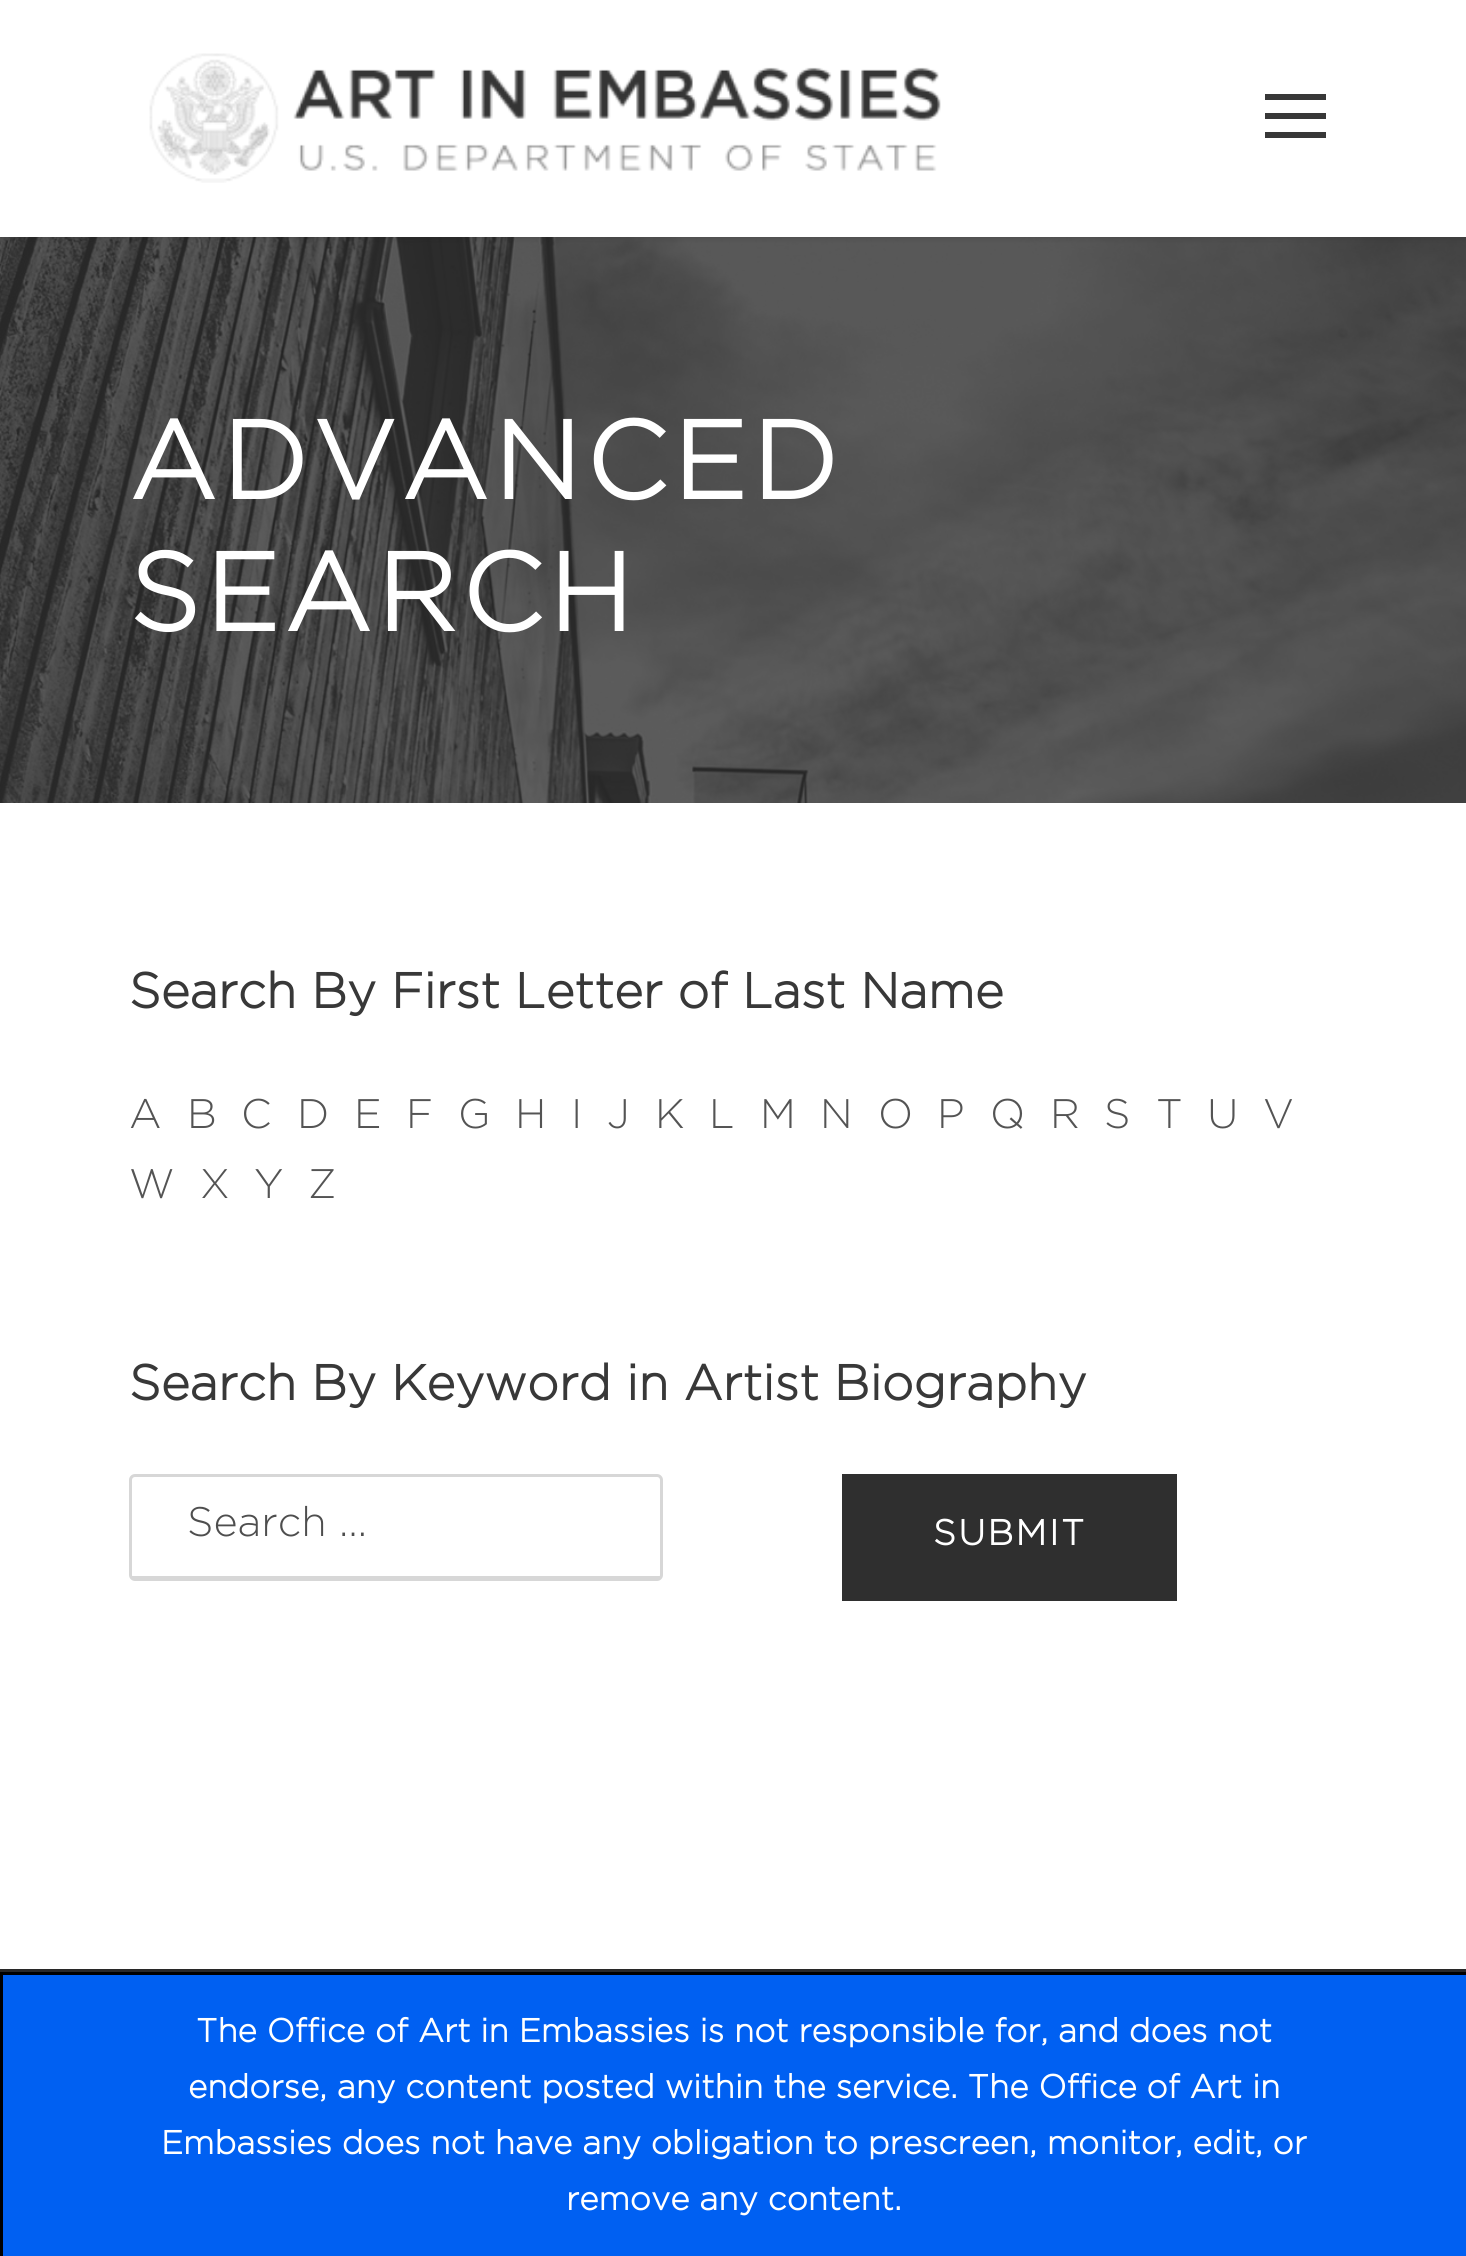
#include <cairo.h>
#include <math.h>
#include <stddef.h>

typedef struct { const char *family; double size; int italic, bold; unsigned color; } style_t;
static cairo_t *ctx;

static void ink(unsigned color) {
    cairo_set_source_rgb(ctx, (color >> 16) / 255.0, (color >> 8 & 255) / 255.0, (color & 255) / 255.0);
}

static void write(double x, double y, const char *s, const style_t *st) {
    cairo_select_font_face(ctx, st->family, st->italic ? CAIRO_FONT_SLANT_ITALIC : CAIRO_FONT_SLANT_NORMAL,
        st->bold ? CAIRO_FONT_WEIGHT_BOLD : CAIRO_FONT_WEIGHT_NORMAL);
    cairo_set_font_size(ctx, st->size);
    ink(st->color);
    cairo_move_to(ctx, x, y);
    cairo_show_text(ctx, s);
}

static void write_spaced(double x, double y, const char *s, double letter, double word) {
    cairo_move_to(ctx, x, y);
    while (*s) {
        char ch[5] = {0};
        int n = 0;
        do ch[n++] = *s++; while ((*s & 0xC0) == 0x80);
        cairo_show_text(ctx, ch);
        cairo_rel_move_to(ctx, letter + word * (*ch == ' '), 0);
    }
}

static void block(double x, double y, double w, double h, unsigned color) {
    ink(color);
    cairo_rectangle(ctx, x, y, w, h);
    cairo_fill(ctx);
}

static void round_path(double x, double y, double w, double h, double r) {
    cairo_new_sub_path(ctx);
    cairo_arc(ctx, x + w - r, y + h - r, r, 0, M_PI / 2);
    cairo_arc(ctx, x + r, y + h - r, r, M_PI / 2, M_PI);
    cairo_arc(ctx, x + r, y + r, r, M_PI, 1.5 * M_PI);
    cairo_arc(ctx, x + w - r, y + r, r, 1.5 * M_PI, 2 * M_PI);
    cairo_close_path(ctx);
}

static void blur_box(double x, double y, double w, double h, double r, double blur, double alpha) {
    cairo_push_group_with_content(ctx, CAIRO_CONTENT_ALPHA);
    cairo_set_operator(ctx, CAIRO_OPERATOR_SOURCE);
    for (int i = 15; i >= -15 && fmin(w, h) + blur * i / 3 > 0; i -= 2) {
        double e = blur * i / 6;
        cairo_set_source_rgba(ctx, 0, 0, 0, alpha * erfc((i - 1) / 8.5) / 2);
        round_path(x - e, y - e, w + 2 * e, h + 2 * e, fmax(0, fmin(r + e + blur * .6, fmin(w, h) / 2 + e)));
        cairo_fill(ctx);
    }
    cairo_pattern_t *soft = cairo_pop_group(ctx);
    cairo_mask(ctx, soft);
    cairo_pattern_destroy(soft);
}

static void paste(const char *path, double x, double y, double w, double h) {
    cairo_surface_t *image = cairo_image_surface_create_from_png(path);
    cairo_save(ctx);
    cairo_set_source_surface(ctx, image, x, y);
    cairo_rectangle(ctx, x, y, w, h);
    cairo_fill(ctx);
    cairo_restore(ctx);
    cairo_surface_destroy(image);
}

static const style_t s1 = {"Gotham", 49.5, 0, 1, 0x383838};
static const style_t s2 = {"Gotham Light", 41.25, 0, 0, 0x545454};
static const style_t s3 = {"Gotham Light", 41.25, 0, 0, 0x4e4e4e};
static const style_t s4 = {"Gotham", 33, 0, 1, 0xffffff};

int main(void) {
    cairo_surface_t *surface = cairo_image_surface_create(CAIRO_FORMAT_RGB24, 1466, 2256);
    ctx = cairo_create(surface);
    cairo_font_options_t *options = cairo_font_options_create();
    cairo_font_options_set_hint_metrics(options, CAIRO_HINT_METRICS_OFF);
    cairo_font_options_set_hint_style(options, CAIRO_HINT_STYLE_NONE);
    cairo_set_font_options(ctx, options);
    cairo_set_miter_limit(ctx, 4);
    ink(0xffffff);
    cairo_paint(ctx);
    paste("pic2.png", 0, 237, 1466, 566);
    ink(0x000000);
    blur_box(0, 3, 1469, 236, 0, 3, 0.1);
    block(0, 0, 1466, 237, 0xffffff);
    paste("pic1.png", 149, 53, 792, 130);
    block(1265, 94, 61, 6, 0x383838);
    block(1265, 113, 61, 6, 0x383838);
    block(1265, 132, 61, 6, 0x383838);
    cairo_select_font_face(ctx, "Gotham", CAIRO_FONT_SLANT_NORMAL, CAIRO_FONT_WEIGHT_BOLD);
    cairo_set_font_size(ctx, 110);
    ink(0xffffff);
    write_spaced(129, 499, "ADVANCED", 5.5, 0);
    write_spaced(129, 631, "SEARCH", 5.5, 0);
    write(129, 1008, "Search By First Letter of Last Name", &s1);
    write(129, 1128, "A", &s2);
    write(187, 1128, "B", &s2);
    write(241, 1128, "C", &s2);
    write(297, 1128, "D", &s2);
    write(354, 1128, "E", &s2);
    write(406, 1128, "F", &s2);
    write(458, 1128, "G", &s2);
    write(515, 1128, "H", &s2);
    write(571, 1128, "I", &s2);
    write(607, 1128, "J", &s2);
    write(655, 1128, "K", &s2);
    write(709, 1128, "L", &s2);
    write(760, 1128, "M", &s2);
    write(820, 1128, "N", &s2);
    write(878, 1128, "O", &s2);
    write(937, 1128, "P", &s2);
    write(990, 1128, "Q", &s2);
    write(1050, 1128, "R", &s2);
    write(1104, 1128, "S", &s2);
    write(1156, 1128, "T", &s2);
    write(1207, 1128, "U", &s2);
    write(1263, 1128, "V", &s2);
    write(129, 1198, "W", &s2);
    write(200, 1198, "X", &s2);
    write(254, 1198, "Y", &s2);
    write(308, 1198, "Z", &s2);
    write(129, 1400, "Search By Keyword in Artist Biography", &s1);
    round_path(130.5, 1475.5, 531, 104, 4.5);
    ink(0xd7d7d7);
    cairo_set_line_width(ctx, 3);
    cairo_stroke(ctx);
    block(132, 1576, 528, 2, 0xd7d7d7);
    write(187, 1536, "Search …", &s3);
    block(842, 1474, 335, 127, 0x2f2f2f);
    cairo_select_font_face(ctx, "Gotham", CAIRO_FONT_SLANT_NORMAL, CAIRO_FONT_WEIGHT_BOLD);
    cairo_set_font_size(ctx, 35.75);
    ink(0xffffff);
    write_spaced(933, 1545, "SUBMIT", 2.25, 0);
    cairo_rectangle(ctx, 1.5, 1973.5, 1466, 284);
    ink(0x000000);
    cairo_stroke(ctx);
    block(3, 1975, 1463, 281, 0x0060f2);
    write(196, 2042, "The Office of Art in Embassies is not responsible for, and does not", &s4);
    write(188, 2098, "endorse, any content posted within the service. The Office of Art in", &s4);
    write(161, 2154, "Embassies does not have any obligation to prescreen, monitor, edit, or", &s4);
    write(566, 2210, "remove any content.", &s4);
    block(0, 1969, 1466, 3, 0x282828);
    cairo_surface_write_to_png(surface, "screenshot.png");
    cairo_font_options_destroy(options);
    cairo_destroy(ctx);
    cairo_surface_destroy(surface);
    return 0;
}
